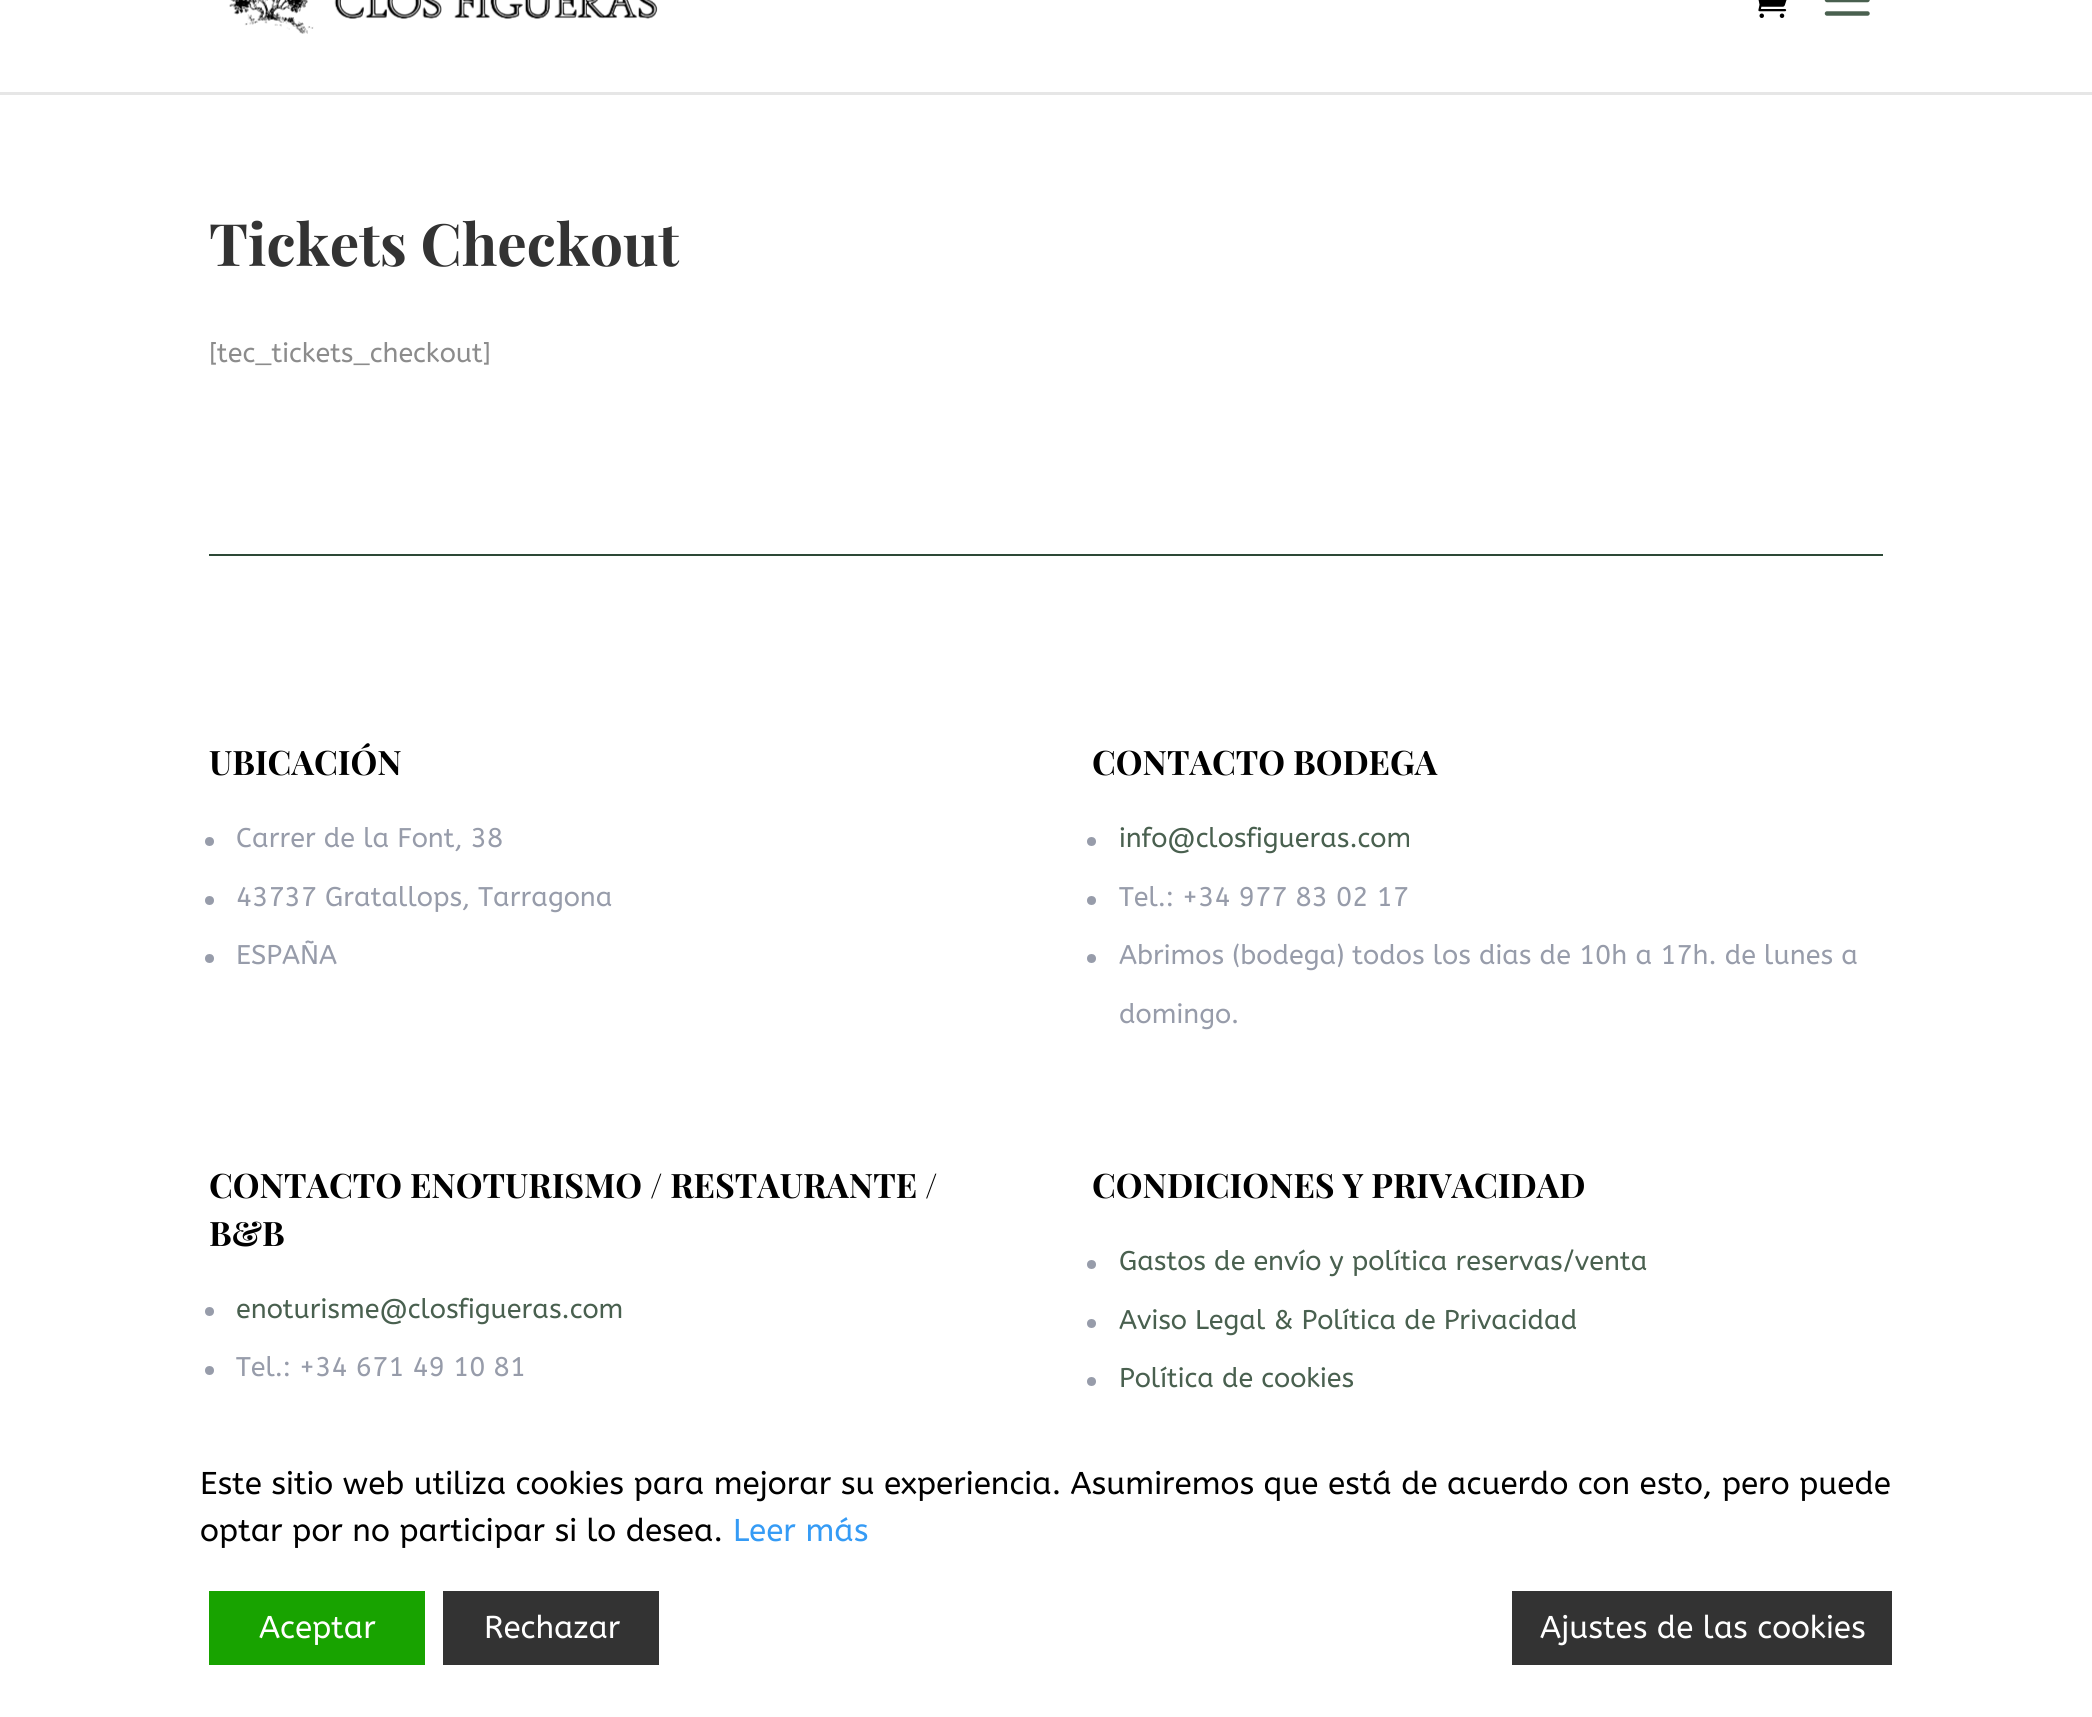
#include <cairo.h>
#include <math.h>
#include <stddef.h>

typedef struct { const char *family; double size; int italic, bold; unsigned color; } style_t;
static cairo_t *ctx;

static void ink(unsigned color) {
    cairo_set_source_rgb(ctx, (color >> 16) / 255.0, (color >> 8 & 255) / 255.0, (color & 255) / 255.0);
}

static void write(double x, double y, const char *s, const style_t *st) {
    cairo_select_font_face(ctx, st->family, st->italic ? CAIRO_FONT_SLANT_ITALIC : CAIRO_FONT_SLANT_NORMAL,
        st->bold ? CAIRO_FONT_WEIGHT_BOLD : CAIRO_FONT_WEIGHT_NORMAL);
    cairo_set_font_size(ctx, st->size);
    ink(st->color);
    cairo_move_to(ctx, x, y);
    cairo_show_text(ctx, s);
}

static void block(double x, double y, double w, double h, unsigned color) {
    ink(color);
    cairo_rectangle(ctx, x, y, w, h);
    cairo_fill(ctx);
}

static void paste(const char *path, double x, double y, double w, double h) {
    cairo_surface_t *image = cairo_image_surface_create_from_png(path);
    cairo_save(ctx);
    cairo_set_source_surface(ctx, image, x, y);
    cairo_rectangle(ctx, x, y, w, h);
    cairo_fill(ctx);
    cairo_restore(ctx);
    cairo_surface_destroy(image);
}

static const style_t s1 = {"Playfair Display", 58.5, 0, 1, 0x333333};
static const style_t s2 = {"ABeeZee", 27, 0, 0, 0x8c8c8c};
static const style_t s3 = {"Playfair Display", 33.75, 0, 1, 0x000000};
static const style_t s4 = {"ABeeZee", 27, 0, 0, 0x979caa};
static const style_t s5 = {"ABeeZee", 27, 0, 0, 0x49604f};
static const style_t s6 = {"ABeeZee", 31.5, 0, 0, 0x000000};
static const style_t s7 = {"ABeeZee", 31.5, 0, 0, 0x359bf5};
static const style_t s8 = {"ABeeZee", 31.5, 0, 0, 0xffffff};

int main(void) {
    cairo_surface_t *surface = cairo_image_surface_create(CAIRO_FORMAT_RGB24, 2092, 1717);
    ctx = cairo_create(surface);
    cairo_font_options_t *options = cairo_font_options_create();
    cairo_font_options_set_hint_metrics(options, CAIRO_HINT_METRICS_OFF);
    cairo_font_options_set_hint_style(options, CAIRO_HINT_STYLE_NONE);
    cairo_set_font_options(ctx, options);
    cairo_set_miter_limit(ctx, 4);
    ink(0xffffff);
    cairo_paint(ctx);
    ink(0xe6e6e6);
    cairo_new_path(ctx);
    cairo_move_to(ctx, 0, 92);
    cairo_line_to(ctx, 0, 95);
    cairo_line_to(ctx, 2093, 95);
    cairo_line_to(ctx, 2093, -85);
    cairo_line_to(ctx, 2092, -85);
    cairo_line_to(ctx, 2092, 92);
    cairo_close_path(ctx);
    cairo_fill(ctx);
    paste("pic1.png", 229, 0, 429, 34);
    paste("pic2.png", 1758, 0, 29, 18);
    paste("pic3.png", 1824, 0, 46, 16);
    write(209, 266, "Tickets Checkout", &s1);
    write(209, 362, "[tec_tickets_checkout]", &s2);
    block(209, 554, 1674, 2, 0x2d4836);
    write(209, 775, "UBICACIÓN", &s3);
    ink(0x979caa);
    cairo_new_path(ctx);
    cairo_arc(ctx, 209.5, 841.5, 4.5, 0, 2 * M_PI);
    cairo_fill(ctx);
    write(236, 847, "Carrer de la Font, 38", &s4);
    cairo_new_path(ctx);
    cairo_arc(ctx, 209.5, 900.5, 4.5, 0, 2 * M_PI);
    cairo_fill(ctx);
    write(236, 906, "43737 Gratallops, Tarragona", &s4);
    cairo_new_path(ctx);
    cairo_arc(ctx, 209.5, 958.5, 4.5, 0, 2 * M_PI);
    cairo_fill(ctx);
    write(236, 964, "ESPAÑA", &s4);
    write(1092, 775, "CONTACTO BODEGA", &s3);
    ink(0x979caa);
    cairo_new_path(ctx);
    cairo_arc(ctx, 1091.5, 841.5, 4.5, 0, 2 * M_PI);
    cairo_fill(ctx);
    write(1119, 847, "info@closfigueras.com", &s5);
    ink(0x979caa);
    cairo_new_path(ctx);
    cairo_arc(ctx, 1091.5, 900.5, 4.5, 0, 2 * M_PI);
    cairo_fill(ctx);
    write(1119, 906, "Tel.: +34 977 83 02 17", &s4);
    cairo_new_path(ctx);
    cairo_arc(ctx, 1091.5, 958.5, 4.5, 0, 2 * M_PI);
    cairo_fill(ctx);
    write(1119, 964, "Abrimos (bodega) todos los dias de 10h a 17h. de lunes a", &s4);
    write(1119, 1023, "domingo.", &s4);
    write(209, 1198, "CONTACTO ENOTURISMO / RESTAURANTE /", &s3);
    write(209, 1246, "B&B", &s3);
    ink(0x979caa);
    cairo_new_path(ctx);
    cairo_arc(ctx, 209.5, 1311.5, 4.5, 0, 2 * M_PI);
    cairo_fill(ctx);
    write(236, 1318, "enoturisme@closfigueras.com", &s5);
    ink(0x979caa);
    cairo_new_path(ctx);
    cairo_arc(ctx, 209.5, 1370.5, 4.5, 0, 2 * M_PI);
    cairo_fill(ctx);
    write(236, 1376, "Tel.: +34 671 49 10 81", &s4);
    write(1092, 1198, "CONDICIONES Y PRIVACIDAD", &s3);
    ink(0x979caa);
    cairo_new_path(ctx);
    cairo_arc(ctx, 1091.5, 1264.5, 4.5, 0, 2 * M_PI);
    cairo_fill(ctx);
    write(1119, 1270, "Gastos de envío y política reservas/venta", &s5);
    ink(0x979caa);
    cairo_new_path(ctx);
    cairo_arc(ctx, 1091.5, 1323.5, 4.5, 0, 2 * M_PI);
    cairo_fill(ctx);
    write(1119, 1329, "Aviso Legal & Política de Privacidad", &s5);
    ink(0x979caa);
    cairo_new_path(ctx);
    cairo_arc(ctx, 1091.5, 1381.5, 4.5, 0, 2 * M_PI);
    cairo_fill(ctx);
    write(1119, 1387, "Política de cookies", &s5);
    write(200, 1494, "Este sitio web utiliza cookies para mejorar su experiencia. Asumiremos que está de acuerdo con esto, pero puede", &s6);
    write(200, 1541, "optar por no participar si lo desea.", &s6);
    write(733, 1541, "Leer más", &s7);
    block(209, 1591, 216, 74, 0x18a300);
    write(259, 1638, "Aceptar", &s8);
    block(443, 1591, 216, 74, 0x333333);
    write(484, 1638, "Rechazar", &s8);
    block(1512, 1591, 380, 74, 0x333333);
    write(1540, 1638, "Ajustes de las cookies", &s8);
    cairo_surface_write_to_png(surface, "screenshot.png");
    cairo_font_options_destroy(options);
    cairo_destroy(ctx);
    cairo_surface_destroy(surface);
    return 0;
}
